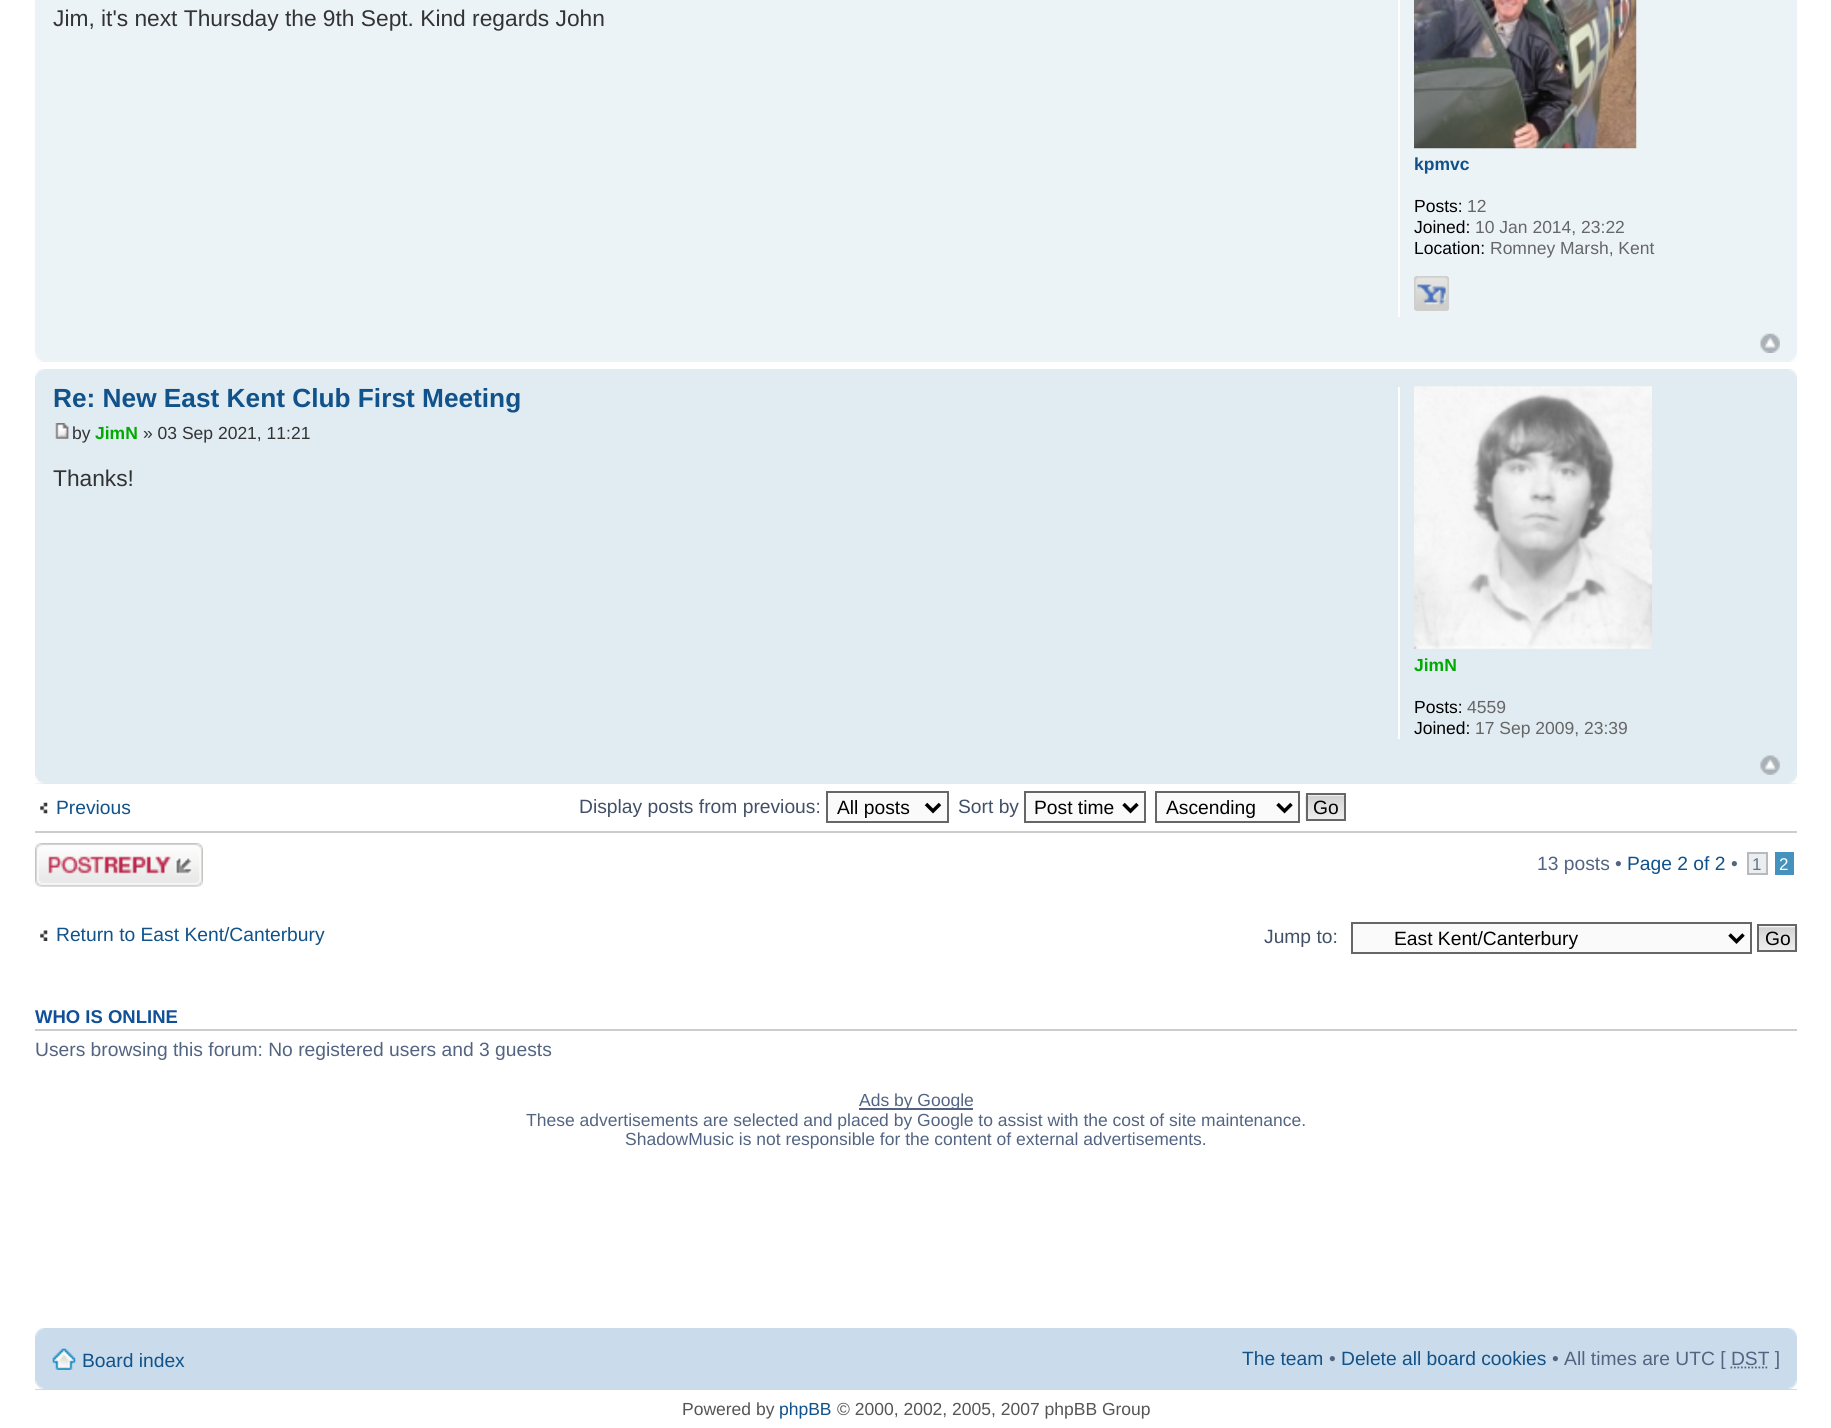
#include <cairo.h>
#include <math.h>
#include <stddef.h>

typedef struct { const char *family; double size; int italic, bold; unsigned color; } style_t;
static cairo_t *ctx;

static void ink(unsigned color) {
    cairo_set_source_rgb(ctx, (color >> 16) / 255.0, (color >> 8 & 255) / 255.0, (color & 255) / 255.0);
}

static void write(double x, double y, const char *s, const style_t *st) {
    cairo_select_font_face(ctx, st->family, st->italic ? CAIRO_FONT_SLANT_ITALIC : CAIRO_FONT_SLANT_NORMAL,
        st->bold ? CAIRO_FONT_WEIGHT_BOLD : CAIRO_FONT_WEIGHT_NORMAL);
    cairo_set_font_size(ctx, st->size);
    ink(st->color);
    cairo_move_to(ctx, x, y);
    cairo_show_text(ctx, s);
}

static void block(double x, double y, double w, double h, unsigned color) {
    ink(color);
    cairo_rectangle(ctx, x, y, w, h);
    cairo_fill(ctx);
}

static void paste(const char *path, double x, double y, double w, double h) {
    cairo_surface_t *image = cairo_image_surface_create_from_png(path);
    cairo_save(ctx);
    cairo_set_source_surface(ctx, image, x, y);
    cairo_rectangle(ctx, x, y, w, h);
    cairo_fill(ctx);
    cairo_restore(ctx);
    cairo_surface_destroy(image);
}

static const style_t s1 = {"Liberation Sans", 22.75, 0, 0, 0x333333};
static const style_t s2 = {"Liberation Sans", 17.5, 0, 1, 0x105289};
static const style_t s3 = {"Liberation Sans", 17.5, 0, 0, 0x000000};
static const style_t s4 = {"Liberation Sans", 17.5, 0, 0, 0x666666};
static const style_t s5 = {"Liberation Sans", 26.25, 0, 1, 0x105289};
static const style_t s6 = {"Liberation Sans", 17.5, 0, 0, 0x333333};
static const style_t s7 = {"Liberation Sans", 17.5, 0, 1, 0x00aa00};
static const style_t s8 = {"Liberation Sans", 19.25, 0, 0, 0x105289};
static const style_t s9 = {"Liberation Sans", 19.25, 0, 0, 0x425067};
static const style_t s10 = {"Liberation Sans", 19.25, 0, 0, 0x000000};
static const style_t s11 = {"Liberation Sans", 19.25, 0, 0, 0x536482};
static const style_t s12 = {"Liberation Sans", 17, 0, 0, 0x5c758c};
static const style_t s13 = {"Liberation Sans", 17, 0, 0, 0xffffff};
static const style_t s14 = {"Liberation Sans", 18.5, 0, 1, 0x115098};
static const style_t s15 = {"Liberation Sans", 17.5, 0, 0, 0x536482};
static const style_t s16 = {"Liberation Sans", 17.5, 0, 0, 0x555555};
static const style_t s17 = {"Liberation Sans", 17.5, 0, 0, 0x105289};

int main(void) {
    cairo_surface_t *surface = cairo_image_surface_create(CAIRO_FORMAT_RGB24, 1831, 1428);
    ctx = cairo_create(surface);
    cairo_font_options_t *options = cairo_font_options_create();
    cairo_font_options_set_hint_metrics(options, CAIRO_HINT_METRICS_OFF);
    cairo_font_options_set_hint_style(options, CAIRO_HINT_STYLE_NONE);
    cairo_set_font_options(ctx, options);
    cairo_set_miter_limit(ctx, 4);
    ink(0xffffff);
    cairo_paint(ctx);
    block(35, 0, 1762, 362, 0xecf3f7);
    write(53, 26, "Jim, it's next Thursday the 9th Sept. Kind regards John", &s1);
    block(1398, 0, 2, 317, 0xffffff);
    paste("pic1.png", 1414, 0, 223, 149);
    write(1414, 170, "kpmvc", &s2);
    write(1414, 212, "Posts:", &s3);
    write(1467, 212, "12", &s4);
    write(1414, 233, "Joined:", &s3);
    write(1475, 233, "10 Jan 2014, 23:22", &s4);
    write(1414, 254, "Location:", &s3);
    write(1490, 254, "Romney Marsh, Kent", &s4);
    paste("pic2.png", 1414, 276, 35, 35);
    paste("pic3.png", 1414, 276, 35, 35);
    paste("pic4.png", 1760, 333, 20, 20);
    paste("pic5.png", 35, 353, 8, 9);
    paste("pic6.png", 1790, 353, 7, 9);
    block(35, 369, 1762, 415, 0xe1ebf2);
    paste("pic7.png", 35, 369, 9, 8);
    paste("pic8.png", 1789, 369, 8, 8);
    write(53, 407, "Re: New East Kent Club First Meeting", &s5);
    paste("pic9.png", 55, 423, 14, 16);
    write(72, 439, "by", &s6);
    write(95, 439, "JimN", &s7);
    write(143, 439, "» 03 Sep 2021, 11:21", &s6);
    write(53, 486, "Thanks!", &s1);
    block(1398, 387, 2, 352, 0xffffff);
    paste("pic10.png", 1414, 386, 238, 263);
    write(1414, 671, "JimN", &s7);
    write(1414, 713, "Posts:", &s3);
    write(1467, 713, "4559", &s4);
    write(1414, 734, "Joined:", &s3);
    write(1475, 734, "17 Sep 2009, 23:39", &s4);
    paste("pic11.png", 1760, 755, 20, 20);
    paste("pic12.png", 35, 775, 9, 9);
    paste("pic13.png", 1789, 775, 8, 9);
    paste("pic14.png", 40, 802, 8, 12);
    write(56, 814, "Previous", &s8);
    write(579, 813, "Display posts from previous:", &s9);
    ink(0xfafafa);
    cairo_rectangle(ctx, 827, 792, 121, 30);
    cairo_fill_preserve(ctx);
    ink(0x666666);
    cairo_stroke(ctx);
    cairo_new_path(ctx);
    cairo_move_to(ctx, 926, 804);
    cairo_line_to(ctx, 933, 811);
    cairo_line_to(ctx, 940, 804);
    ink(0x000000);
    cairo_set_line_width(ctx, 3.5);
    cairo_stroke(ctx);
    write(837, 814, "All posts", &s10);
    write(958, 813, "Sort by", &s9);
    ink(0xfafafa);
    cairo_rectangle(ctx, 1025, 792, 120, 30);
    cairo_fill_preserve(ctx);
    ink(0x666666);
    cairo_set_line_width(ctx, 2);
    cairo_stroke(ctx);
    cairo_new_path(ctx);
    cairo_move_to(ctx, 1123.5, 804);
    cairo_line_to(ctx, 1130.5, 811);
    cairo_line_to(ctx, 1137.5, 804);
    ink(0x000000);
    cairo_set_line_width(ctx, 3.5);
    cairo_stroke(ctx);
    write(1034, 814, "Post time", &s10);
    ink(0xfafafa);
    cairo_rectangle(ctx, 1156, 792, 143, 30);
    cairo_fill_preserve(ctx);
    ink(0x666666);
    cairo_set_line_width(ctx, 2);
    cairo_stroke(ctx);
    cairo_new_path(ctx);
    cairo_move_to(ctx, 1277.5, 804);
    cairo_line_to(ctx, 1284.5, 811);
    cairo_line_to(ctx, 1291.5, 804);
    ink(0x000000);
    cairo_set_line_width(ctx, 3.5);
    cairo_stroke(ctx);
    write(1166, 814, "Ascending", &s10);
    paste("pic15.png", 1305, 794, 39, 26);
    cairo_rectangle(ctx, 1307, 794, 38, 26);
    ink(0x666666);
    cairo_set_line_width(ctx, 2);
    cairo_stroke(ctx);
    write(1313, 814, "Go", &s10);
    block(35, 831, 1762, 2, 0xcccccc);
    paste("pic16.png", 35, 843, 168, 44);
    write(1537, 870, "13 posts •", &s11);
    write(1627, 870, "Page 2 of 2", &s8);
    write(1731, 870, "•", &s11);
    ink(0xecedee);
    cairo_rectangle(ctx, 1748, 853, 19, 21);
    cairo_fill_preserve(ctx);
    ink(0xb4bac0);
    cairo_stroke(ctx);
    write(1752, 870, "1", &s12);
    block(1775, 852, 19, 23, 0x4692bf);
    write(1779, 870, "2", &s13);
    paste("pic17.png", 40, 930, 8, 11);
    write(56, 941, "Return to East Kent/Canterbury", &s8);
    write(1264, 943, "Jump to:", &s9);
    ink(0xfafafa);
    cairo_rectangle(ctx, 1352, 923, 399, 30);
    cairo_fill_preserve(ctx);
    ink(0x666666);
    cairo_stroke(ctx);
    cairo_new_path(ctx);
    cairo_move_to(ctx, 1729.5, 934.5);
    cairo_line_to(ctx, 1736.5, 941.5);
    cairo_line_to(ctx, 1743.5, 934.5);
    ink(0x000000);
    cairo_set_line_width(ctx, 3.5);
    cairo_stroke(ctx);
    write(1394, 945, "East Kent/Canterbury", &s10);
    paste("pic18.png", 1759, 926, 39, 26);
    cairo_rectangle(ctx, 1758, 925, 38, 26);
    ink(0x666666);
    cairo_set_line_width(ctx, 2);
    cairo_stroke(ctx);
    write(1765, 945, "Go", &s10);
    block(35, 1029, 1762, 2, 0xcccccc);
    write(35, 1023, "WHO IS ONLINE", &s14);
    write(35, 1056, "Users browsing this forum: No registered users and 3 guests", &s11);
    block(859, 1108, 114, 2, 0x536482);
    write(859, 1106, "Ads by Google", &s15);
    write(526, 1126, "These advertisements are selected and placed by Google to assist with the cost of site maintenance.", &s15);
    write(625, 1145, "ShadowMusic is not responsible for the content of external advertisements.", &s15);
    block(35, 1328, 1762, 62, 0xcadceb);
    paste("pic19.png", 35, 1328, 9, 9);
    paste("pic20.png", 1788, 1328, 9, 9);
    paste("pic21.png", 52, 1348, 24, 22);
    write(82, 1367, "Board index", &s8);
    write(1242, 1365, "The team", &s8);
    write(1329, 1365, "•", &s11);
    write(1341, 1365, "Delete all board cookies", &s8);
    write(1552, 1365, "• All times are UTC [ DST ]", &s11);
    cairo_new_path(ctx);
    cairo_move_to(ctx, 1730.5, 1367.5);
    cairo_line_to(ctx, 1769, 1367.5);
    cairo_set_line_width(ctx, 1.8);
    cairo_set_dash(ctx, (double[]){1.75, 1.75}, 2, 0);
    cairo_stroke(ctx);
    paste("pic22.png", 35, 1380, 9, 9);
    paste("pic23.png", 1788, 1380, 9, 9);
    write(682, 1415, "Powered by", &s16);
    write(779, 1415, "phpBB", &s17);
    write(837, 1415, "© 2000, 2002, 2005, 2007 phpBB Group", &s16);
    cairo_surface_write_to_png(surface, "screenshot.png");
    cairo_font_options_destroy(options);
    cairo_destroy(ctx);
    cairo_surface_destroy(surface);
    return 0;
}
